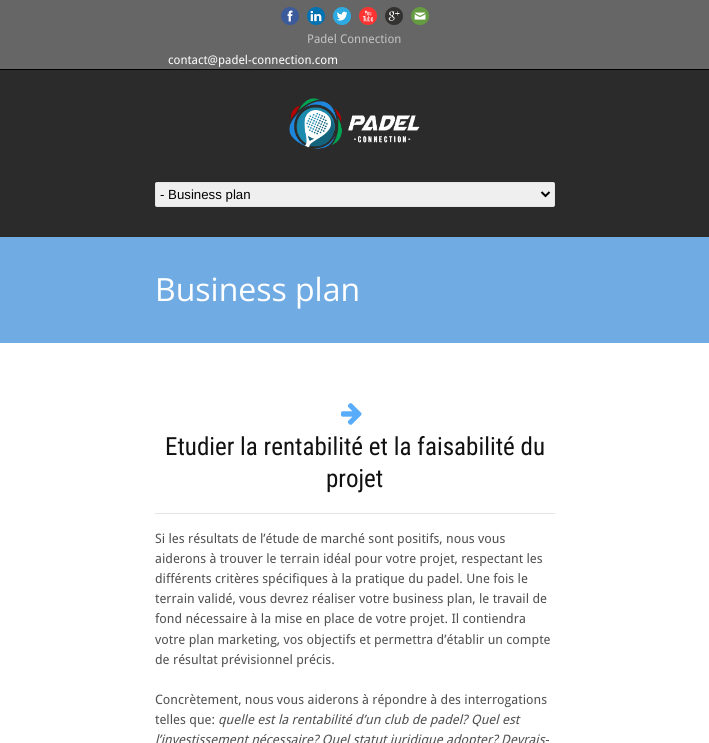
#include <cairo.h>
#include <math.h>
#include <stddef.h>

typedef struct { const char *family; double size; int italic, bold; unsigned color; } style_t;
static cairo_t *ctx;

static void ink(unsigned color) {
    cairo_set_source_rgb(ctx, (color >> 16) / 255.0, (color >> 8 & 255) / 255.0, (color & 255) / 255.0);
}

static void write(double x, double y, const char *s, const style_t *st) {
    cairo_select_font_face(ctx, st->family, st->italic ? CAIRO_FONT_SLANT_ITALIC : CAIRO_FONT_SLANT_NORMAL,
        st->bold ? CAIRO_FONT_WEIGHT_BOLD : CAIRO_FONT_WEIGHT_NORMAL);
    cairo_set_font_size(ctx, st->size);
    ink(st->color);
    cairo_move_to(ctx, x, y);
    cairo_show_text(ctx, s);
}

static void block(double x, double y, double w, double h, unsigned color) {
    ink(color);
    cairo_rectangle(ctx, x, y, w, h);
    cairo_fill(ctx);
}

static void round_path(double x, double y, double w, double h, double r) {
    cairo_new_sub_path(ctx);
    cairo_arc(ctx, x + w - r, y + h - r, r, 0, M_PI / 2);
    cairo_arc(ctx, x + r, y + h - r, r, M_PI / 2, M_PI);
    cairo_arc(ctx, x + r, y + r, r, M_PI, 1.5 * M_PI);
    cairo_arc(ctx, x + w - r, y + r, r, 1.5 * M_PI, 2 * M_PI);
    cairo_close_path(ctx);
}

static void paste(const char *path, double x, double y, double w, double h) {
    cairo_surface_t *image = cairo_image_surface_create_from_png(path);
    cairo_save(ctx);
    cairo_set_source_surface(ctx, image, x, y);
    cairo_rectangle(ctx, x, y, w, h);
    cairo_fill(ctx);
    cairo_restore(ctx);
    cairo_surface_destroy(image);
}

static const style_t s1 = {"Droid Sans", 12, 0, 0, 0xc2c2c2};
static const style_t s2 = {"Droid Sans", 12, 0, 0, 0xffffff};
static const style_t s3 = {"Liberation Sans", 13.25, 0, 0, 0x000000};
static const style_t s4 = {"Open Sans", 32, 0, 0, 0xffffff};
static const style_t s5 = {"Roboto Condensed", 25, 0, 0, 0x111111};
static const style_t s6 = {"Droid Sans", 13, 0, 0, 0x505050};
static const style_t s7 = {"Droid Sans", 13, 1, 0, 0x505050};

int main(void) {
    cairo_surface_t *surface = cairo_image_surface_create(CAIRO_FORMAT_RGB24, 709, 743);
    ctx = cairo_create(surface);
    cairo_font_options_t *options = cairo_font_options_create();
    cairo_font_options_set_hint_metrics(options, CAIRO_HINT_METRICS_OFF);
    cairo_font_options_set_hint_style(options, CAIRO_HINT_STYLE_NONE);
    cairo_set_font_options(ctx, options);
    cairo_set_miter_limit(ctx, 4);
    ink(0xffffff);
    cairo_paint(ctx);
    block(0, 0, 709, 69, 0x666666);
    block(0, 69, 709, 1, 0x000000);
    paste("pic1.png", 281, 7, 18, 18);
    paste("pic2.png", 307, 7, 18, 18);
    paste("pic3.png", 333, 7, 18, 18);
    paste("pic4.png", 359, 7, 18, 18);
    paste("pic5.png", 385, 7, 18, 18);
    paste("pic6.png", 411, 7, 18, 18);
    write(307, 43, "Padel Connection", &s1);
    write(168, 64, "contact@padel-connection.com", &s2);
    block(0, 70, 709, 167, 0x2b2b2b);
    paste("pic7.png", 289, 98, 131, 51);
    ink(0xefefef);
    round_path(155.5, 182.5, 399, 24, 1.5);
    cairo_fill_preserve(ctx);
    ink(0xe5e5e5);
    cairo_set_line_width(ctx, 1);
    cairo_stroke(ctx);
    cairo_new_path(ctx);
    cairo_move_to(ctx, 541.5, 192);
    cairo_line_to(ctx, 545.5, 196);
    cairo_line_to(ctx, 549.5, 192);
    ink(0x000000);
    cairo_set_line_width(ctx, 2);
    cairo_stroke(ctx);
    write(160, 199, "- Business plan", &s3);
    block(0, 237, 709, 106, 0x70ace3);
    write(155, 301, "Business plan", &s4);
    paste("pic8.png", 341, 403, 21, 22);
    write(165, 455, "Etudier la rentabilité et la faisabilité du", &s5);
    write(326, 487, "projet", &s5);
    block(155, 513, 400, 1, 0xe5e5e5);
    write(155, 543, "Si les résultats de l’étude de marché sont positifs, nous vous", &s6);
    write(155, 563, "aiderons à trouver le terrain idéal pour votre projet, respectant les", &s6);
    write(155, 583, "différents critères spécifiques à la pratique du padel. Une fois le", &s6);
    write(155, 603, "terrain validé, vous devrez réaliser votre business plan, le travail de", &s6);
    write(155, 623, "fond nécessaire à la mise en place de votre projet. Il contiendra", &s6);
    write(155, 644, "votre plan marketing, vos objectifs et permettra d’établir un compte", &s6);
    write(155, 664, "de résultat prévisionnel précis.", &s6);
    write(155, 704, "Concrètement, nous vous aiderons à répondre à des interrogations", &s6);
    write(155, 724, "telles que:", &s6);
    write(218, 724, "quelle est la rentabilité d’un club de padel? Quel est", &s7);
    write(155, 744, "l’investissement nécessaire? Quel statut juridique adopter? Devrais-", &s7);
    cairo_surface_write_to_png(surface, "screenshot.png");
    cairo_font_options_destroy(options);
    cairo_destroy(ctx);
    cairo_surface_destroy(surface);
    return 0;
}
